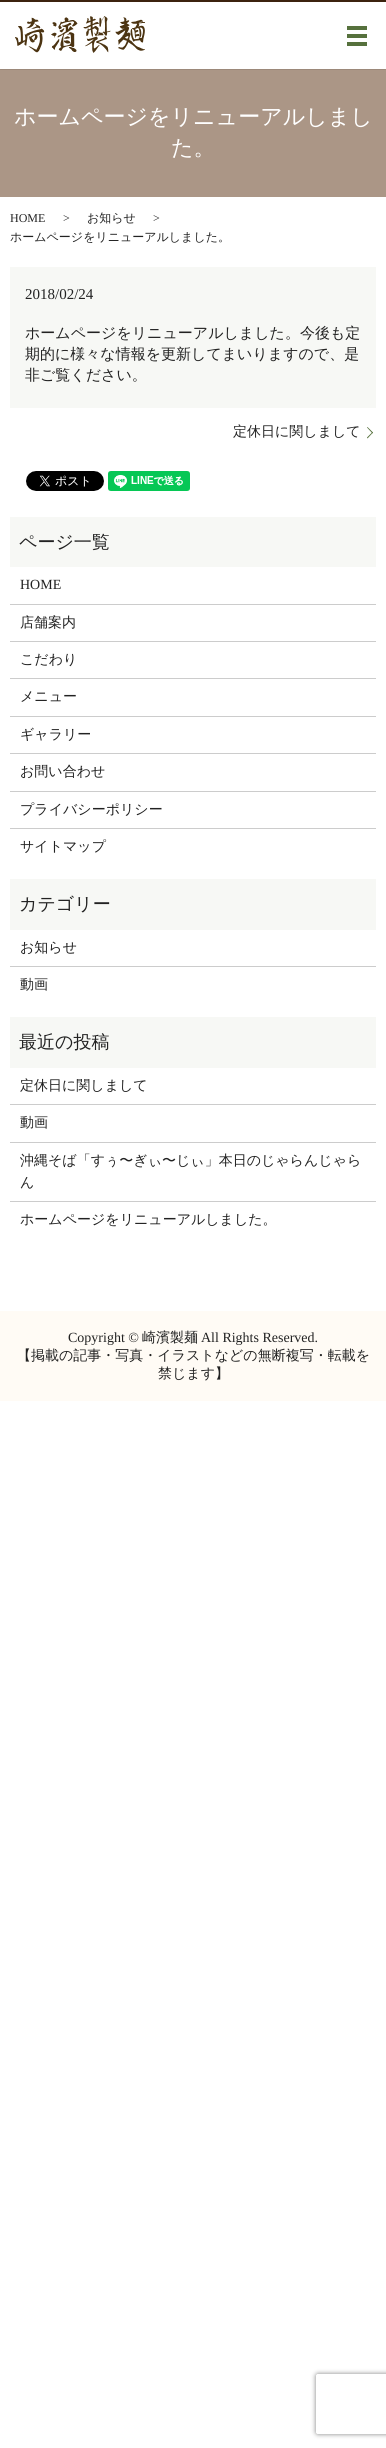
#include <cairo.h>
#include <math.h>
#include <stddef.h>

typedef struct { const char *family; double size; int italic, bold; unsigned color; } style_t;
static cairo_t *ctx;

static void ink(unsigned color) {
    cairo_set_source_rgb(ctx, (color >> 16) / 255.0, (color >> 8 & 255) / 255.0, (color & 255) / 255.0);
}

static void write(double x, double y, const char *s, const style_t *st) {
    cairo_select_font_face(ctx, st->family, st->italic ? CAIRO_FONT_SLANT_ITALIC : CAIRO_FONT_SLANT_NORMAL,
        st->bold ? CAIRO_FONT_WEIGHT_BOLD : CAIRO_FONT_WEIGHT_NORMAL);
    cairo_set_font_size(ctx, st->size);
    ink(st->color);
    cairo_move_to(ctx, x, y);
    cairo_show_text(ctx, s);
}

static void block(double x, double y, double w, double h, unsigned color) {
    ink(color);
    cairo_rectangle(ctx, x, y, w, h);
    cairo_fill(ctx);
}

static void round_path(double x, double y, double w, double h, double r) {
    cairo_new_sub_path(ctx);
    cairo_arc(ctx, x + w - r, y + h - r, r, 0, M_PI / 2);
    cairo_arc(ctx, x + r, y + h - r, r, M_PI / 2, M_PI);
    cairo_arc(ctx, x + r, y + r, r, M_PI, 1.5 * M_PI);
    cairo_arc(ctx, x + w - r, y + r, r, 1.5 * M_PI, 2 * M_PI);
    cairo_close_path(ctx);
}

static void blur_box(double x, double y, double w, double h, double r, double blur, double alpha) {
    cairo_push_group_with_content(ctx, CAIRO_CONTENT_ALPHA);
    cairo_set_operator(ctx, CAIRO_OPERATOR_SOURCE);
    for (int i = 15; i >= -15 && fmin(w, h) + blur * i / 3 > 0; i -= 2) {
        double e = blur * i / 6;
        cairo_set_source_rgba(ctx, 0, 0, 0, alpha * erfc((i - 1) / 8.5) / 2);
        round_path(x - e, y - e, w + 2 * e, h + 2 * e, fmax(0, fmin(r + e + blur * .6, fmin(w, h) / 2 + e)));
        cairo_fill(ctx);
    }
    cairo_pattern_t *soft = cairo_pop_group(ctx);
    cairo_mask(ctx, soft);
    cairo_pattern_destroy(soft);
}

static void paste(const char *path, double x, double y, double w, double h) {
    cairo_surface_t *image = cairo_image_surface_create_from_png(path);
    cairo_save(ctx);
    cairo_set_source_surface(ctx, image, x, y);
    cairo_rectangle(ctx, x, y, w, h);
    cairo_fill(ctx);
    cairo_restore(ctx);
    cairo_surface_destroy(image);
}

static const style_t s1 = {"WenQuanYi Zen Hei Medium", 22, 0, 0, 0xffffff};
static const style_t s2 = {"Liberation Serif", 12, 0, 0, 0x222222};
static const style_t s3 = {"WenQuanYi Zen Hei Medium", 12, 0, 0, 0x222222};
static const style_t s4 = {"Liberation Serif", 15, 0, 0, 0x222222};
static const style_t s5 = {"WenQuanYi Zen Hei Medium", 15, 0, 0, 0x222222};
static const style_t s6 = {"WenQuanYi Zen Hei Medium", 14, 0, 0, 0x222222};
static const style_t s7 = {"WenQuanYi Zen Hei Medium", 18, 0, 0, 0x222222};
static const style_t s8 = {"Liberation Serif", 14, 0, 0, 0x222222};

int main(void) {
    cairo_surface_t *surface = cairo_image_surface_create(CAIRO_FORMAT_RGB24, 386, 2448);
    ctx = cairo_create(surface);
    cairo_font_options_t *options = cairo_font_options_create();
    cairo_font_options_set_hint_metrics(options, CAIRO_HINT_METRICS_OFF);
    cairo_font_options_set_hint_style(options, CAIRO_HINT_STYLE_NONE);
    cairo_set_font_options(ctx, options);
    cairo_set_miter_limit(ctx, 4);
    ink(0xffffff);
    cairo_paint(ctx);
    block(0, 69, 386, 128, 0xab9686);
    cairo_save(ctx);
    cairo_rectangle(ctx, 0, 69, 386, 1);
    cairo_clip(ctx);
    ink(0x000000);
    blur_box(0, 1, 386, 69, 0, 0.5, 0.1);
    cairo_restore(ctx);
    block(0, 0, 386, 2, 0x3c230f);
    paste("pic1.png", 15, 16, 130, 37);
    block(347, 26, 20, 4, 0x56713d);
    block(347, 34, 20, 4, 0x56713d);
    block(347, 42, 20, 4, 0x56713d);
    write(14, 124, "ホームページをリニューアルしまし", &s1);
    write(171, 155, "た。", &s1);
    write(10, 222, "HOME", &s2);
    write(63, 222, ">", &s2);
    write(87, 222, "お知らせ", &s3);
    write(153, 222, ">", &s2);
    write(10, 241, "ホームページをリニューアルしました。", &s3);
    block(10, 267, 366, 141, 0xf7f8f5);
    write(25, 299, "2018/02/24", &s4);
    write(25, 338, "ホームページをリニューアルしました。今後も定", &s5);
    write(25, 359, "期的に様々な情報を更新してまいりますので、是", &s5);
    write(25, 380, "非ご覧ください。", &s5);
    write(233, 436, "定休日に関しまして", &s6);
    ink(0x56713d);
    cairo_new_path(ctx);
    cairo_move_to(ctx, 367.5, 427);
    cairo_line_to(ctx, 373, 432.5);
    cairo_line_to(ctx, 372.5, 433.5);
    cairo_line_to(ctx, 367, 427.5);
    cairo_close_path(ctx);
    cairo_fill(ctx);
    cairo_new_path(ctx);
    cairo_move_to(ctx, 373, 432.5);
    cairo_line_to(ctx, 367.5, 438.5);
    cairo_line_to(ctx, 367, 437.5);
    cairo_line_to(ctx, 372.5, 432);
    cairo_close_path(ctx);
    cairo_fill(ctx);
    paste("pic2.png", 26, 471, 78, 20);
    paste("pic3.png", 108, 471, 82, 20);
    block(10, 517, 366, 50, 0xf7f8f5);
    write(19, 548, "ページ一覧", &s7);
    block(10, 604, 366, 1, 0xcccccc);
    write(20, 589, "HOME", &s8);
    block(10, 641, 366, 1, 0xcccccc);
    write(20, 627, "店舗案内", &s6);
    block(10, 678, 366, 1, 0xcccccc);
    write(20, 664, "こだわり", &s6);
    block(10, 716, 366, 1, 0xcccccc);
    write(20, 701, "メニュー", &s6);
    block(10, 753, 366, 1, 0xcccccc);
    write(20, 739, "ギャラリー", &s6);
    block(10, 791, 366, 1, 0xcccccc);
    write(20, 776, "お問い合わせ", &s6);
    block(10, 828, 366, 1, 0xcccccc);
    write(20, 814, "プライバシーポリシー", &s6);
    write(20, 851, "サイトマップ", &s6);
    block(10, 879, 366, 51, 0xf7f8f5);
    write(19, 910, "カテゴリー", &s7);
    block(10, 966, 366, 1, 0xcccccc);
    write(20, 952, "お知らせ", &s6);
    write(20, 989, "動画", &s6);
    block(10, 1017, 366, 51, 0xf7f8f5);
    write(19, 1048, "最近の投稿", &s7);
    block(10, 1104, 366, 1, 0xcccccc);
    write(20, 1090, "定休日に関しまして", &s6);
    block(10, 1142, 366, 1, 0xcccccc);
    write(20, 1127, "動画", &s6);
    block(10, 1201, 366, 1, 0xcccccc);
    write(20, 1165, "沖縄そば「すぅ〜ぎぃ〜じぃ」本日のじゃらんじゃら", &s6);
    write(20, 1187, "ん", &s6);
    write(20, 1224, "ホームページをリニューアルしました。", &s6);
    block(0, 1311, 386, 90, 0xfffbf5);
    write(68, 1342, "Copyright ©", &s8);
    write(142, 1342, "崎濱製麺", &s6);
    write(201, 1342, "All Rights Reserved.", &s8);
    write(17, 1360, "【掲載の記事・写真・イラストなどの無断複写・転載を", &s6);
    write(158, 1378, "禁じます】", &s6);
    cairo_save(ctx);
    cairo_set_fill_rule(ctx, CAIRO_FILL_RULE_EVEN_ODD);
    cairo_new_path(ctx);
    cairo_move_to(ctx, 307, 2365);
    cairo_line_to(ctx, 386, 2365);
    cairo_line_to(ctx, 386, 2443);
    cairo_line_to(ctx, 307, 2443);
    cairo_close_path(ctx);
    cairo_move_to(ctx, 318, 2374);
    cairo_line_to(ctx, 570, 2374);
    cairo_curve_to(ctx, 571, 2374, 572, 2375, 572, 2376);
    cairo_line_to(ctx, 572, 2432);
    cairo_curve_to(ctx, 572, 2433, 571, 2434, 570, 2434);
    cairo_line_to(ctx, 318, 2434);
    cairo_curve_to(ctx, 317, 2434, 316, 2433, 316, 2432);
    cairo_line_to(ctx, 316, 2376);
    cairo_curve_to(ctx, 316, 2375, 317, 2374, 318, 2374);
    cairo_close_path(ctx);
    cairo_clip(ctx);
    ink(0x808080);
    blur_box(316, 2374, 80, 60, 2, 2.5, 1);
    cairo_restore(ctx);
    cairo_surface_write_to_png(surface, "screenshot.png");
    cairo_font_options_destroy(options);
    cairo_destroy(ctx);
    cairo_surface_destroy(surface);
    return 0;
}
